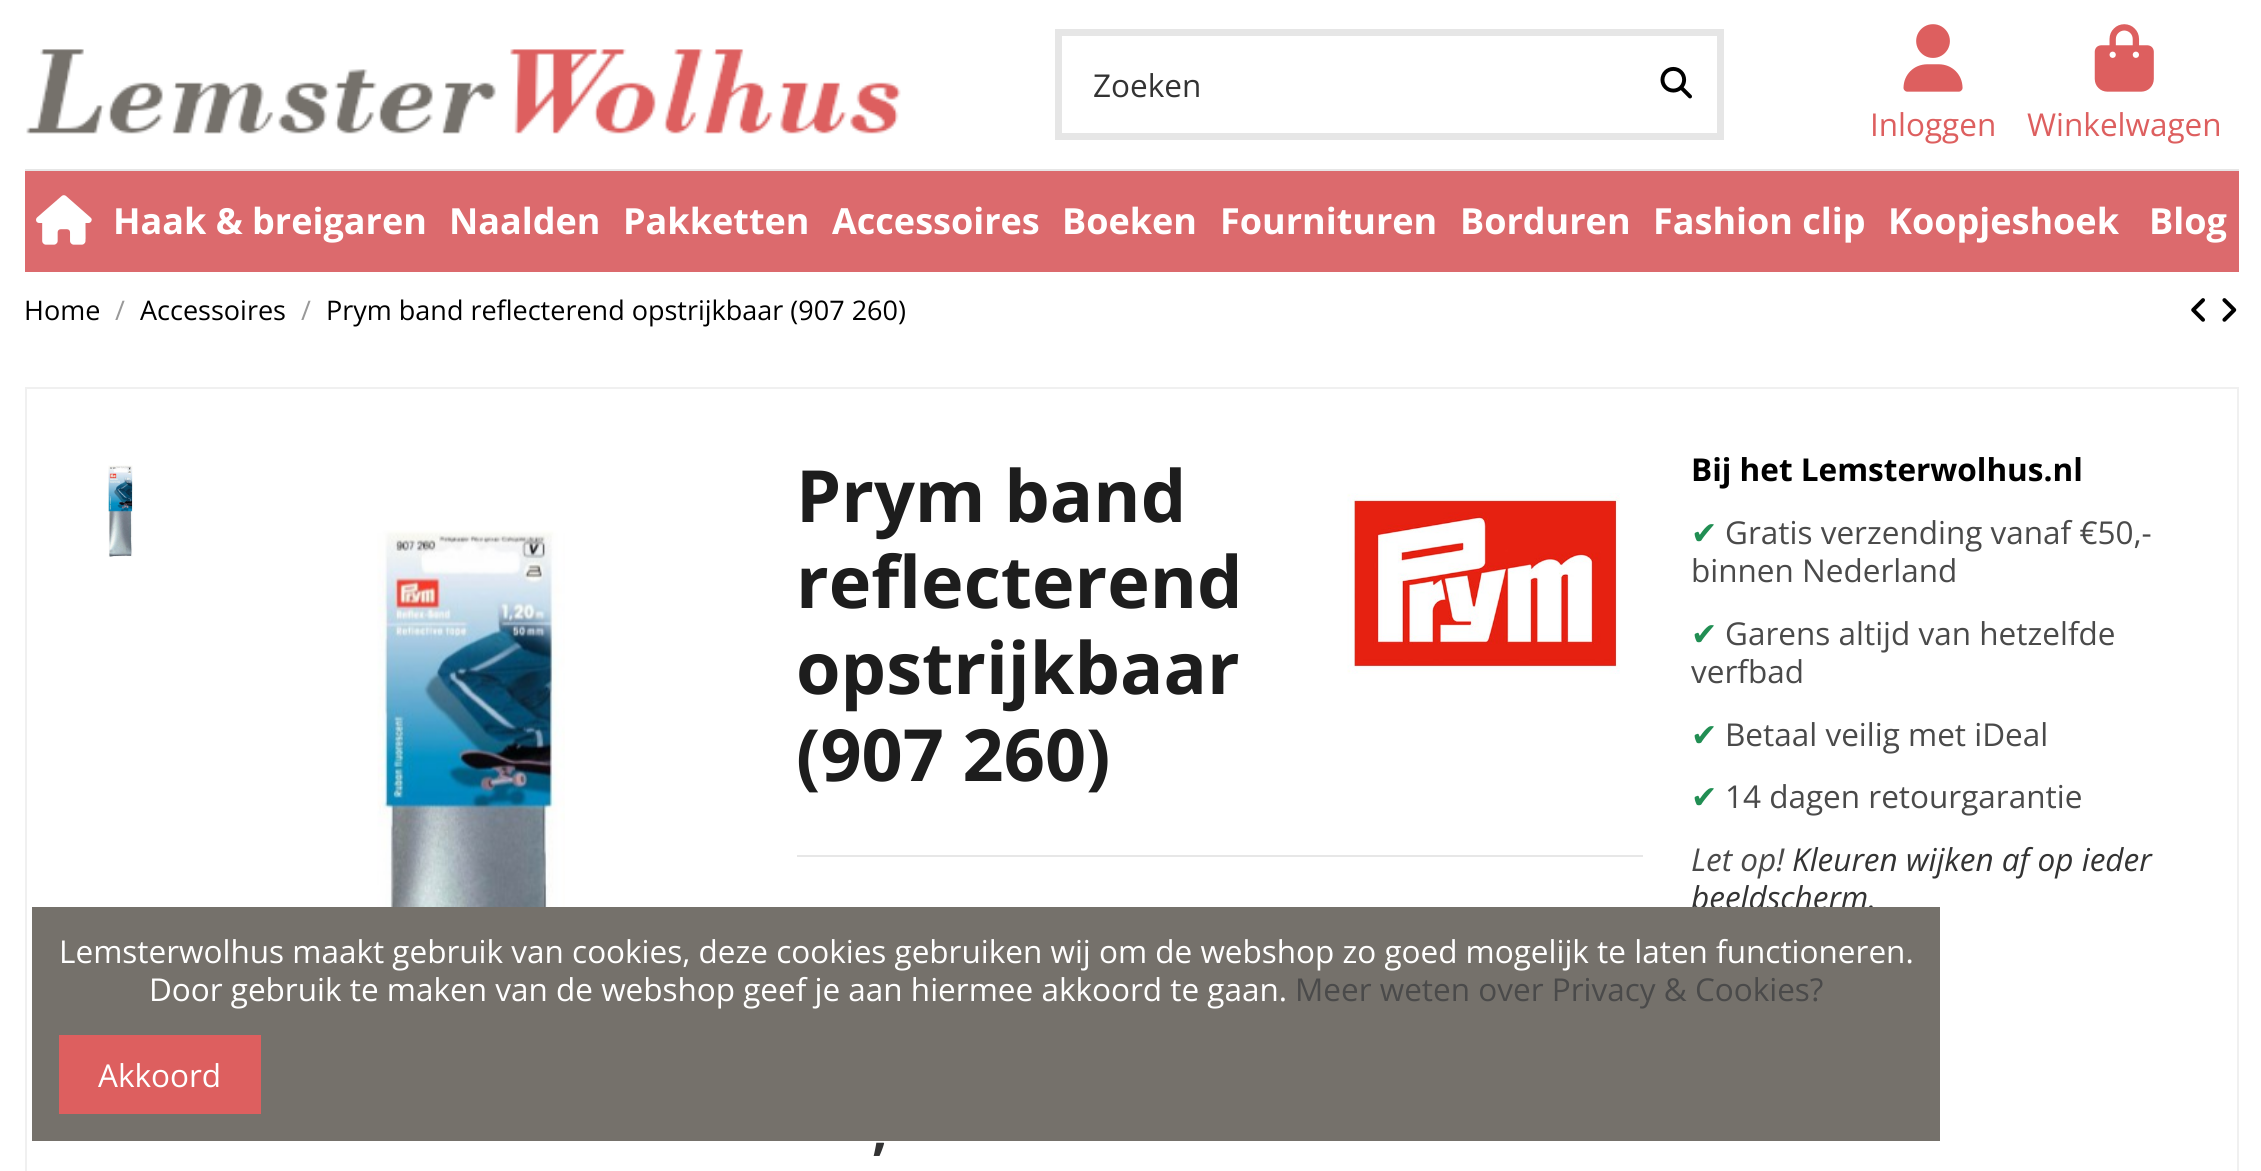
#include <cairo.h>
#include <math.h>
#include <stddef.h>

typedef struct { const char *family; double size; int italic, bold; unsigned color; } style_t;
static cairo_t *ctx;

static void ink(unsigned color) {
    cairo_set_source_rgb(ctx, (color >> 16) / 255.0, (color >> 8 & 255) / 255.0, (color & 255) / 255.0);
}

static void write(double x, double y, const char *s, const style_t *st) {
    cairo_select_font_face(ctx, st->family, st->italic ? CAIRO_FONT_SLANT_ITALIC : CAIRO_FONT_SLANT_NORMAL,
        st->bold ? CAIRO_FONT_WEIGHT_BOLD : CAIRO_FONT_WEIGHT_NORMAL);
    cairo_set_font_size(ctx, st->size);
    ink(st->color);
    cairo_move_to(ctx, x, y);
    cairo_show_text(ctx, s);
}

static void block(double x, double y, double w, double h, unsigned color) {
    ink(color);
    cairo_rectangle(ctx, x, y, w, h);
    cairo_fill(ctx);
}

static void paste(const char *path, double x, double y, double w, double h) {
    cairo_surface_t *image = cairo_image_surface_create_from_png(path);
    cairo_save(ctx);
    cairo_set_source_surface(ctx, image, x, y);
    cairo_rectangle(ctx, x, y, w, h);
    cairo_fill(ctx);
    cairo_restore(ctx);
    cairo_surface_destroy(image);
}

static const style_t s1 = {"Open Sans", 31.5, 0, 0, 0x333333};
static const style_t s2 = {"Open Sans", 31.5, 0, 0, 0xdd5f5f};
static const style_t s3 = {"Open Sans", 36, 0, 1, 0xffffff};
static const style_t s4 = {"Open Sans", 27, 0, 0, 0x000000};
static const style_t s5 = {"Open Sans", 27, 0, 0, 0x999999};
static const style_t s6 = {"Open Sans", 72, 0, 1, 0x1d1d1d};
static const style_t s7 = {"Open Sans", 54, 0, 1, 0x333333};
static const style_t s8 = {"Open Sans", 31.5, 0, 1, 0x000000};
static const style_t s9 = {"DejaVu Sans", 31.5, 0, 0, 0x218e53};
static const style_t s10 = {"Open Sans", 31.5, 0, 0, 0x4a4a4a};
static const style_t s11 = {"Open Sans", 31.5, 1, 0, 0x4a4a4a};
static const style_t s12 = {"Open Sans", 31.5, 1, 0, 0x333333};
static const style_t s13 = {"Open Sans", 31.5, 0, 0, 0xffffff};

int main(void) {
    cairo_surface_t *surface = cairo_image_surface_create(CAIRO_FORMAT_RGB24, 2261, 1171);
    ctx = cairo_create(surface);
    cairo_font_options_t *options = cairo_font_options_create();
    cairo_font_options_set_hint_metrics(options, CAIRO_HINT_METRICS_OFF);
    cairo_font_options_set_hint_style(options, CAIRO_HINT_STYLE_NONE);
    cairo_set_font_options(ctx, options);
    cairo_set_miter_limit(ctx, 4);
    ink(0xffffff);
    cairo_paint(ctx);
    paste("pic1.png", 26, 49, 875, 85);
    cairo_rectangle(ctx, 1058.5, 32.5, 662, 104);
    ink(0xe6e6e6);
    cairo_set_line_width(ctx, 7);
    cairo_stroke(ctx);
    write(1093, 97, "Zoeken", &s1);
    paste("pic2.png", 1660, 66, 32, 33);
    paste("pic3.png", 1903, 24, 60, 68);
    write(1870, 136, "Inloggen", &s2);
    paste("pic4.png", 2094, 24, 60, 68);
    write(2027, 136, "Winkelwagen", &s2);
    block(25, 171, 2214, 101, 0xdc6a6d);
    block(25, 169, 2214, 2, 0xe6e6e6);
    paste("pic5.png", 36, 195, 56, 50);
    write(113, 234, "Haak & breigaren", &s3);
    write(449, 234, "Naalden", &s3);
    write(623, 234, "Pakketten", &s3);
    write(832, 234, "Accessoires", &s3);
    write(1062, 234, "Boeken", &s3);
    write(1220, 234, "Fournituren", &s3);
    write(1460, 234, "Borduren", &s3);
    write(1653, 234, "Fashion clip", &s3);
    write(1888, 234, "Koopjeshoek", &s3);
    write(2149, 234, "Blog", &s3);
    write(24, 320, "Home", &s4);
    write(115, 320, "/", &s5);
    write(140, 320, "Accessoires", &s4);
    write(301, 320, "/", &s5);
    write(326, 320, "Prym band reflecterend opstrijkbaar (907 260)", &s4);
    paste("pic6.png", 2191, 298, 14, 24);
    paste("pic7.png", 2222, 298, 15, 24);
    cairo_rectangle(ctx, 26, 388, 2212, 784);
    ink(0xf0f0f0);
    cairo_set_line_width(ctx, 2);
    cairo_stroke(ctx);
    paste("pic8.png", 108, 465, 25, 92);
    paste("pic9.png", 377, 530, 188, 377);
    block(797, 855, 846, 2, 0xe7e7e7);
    write(796, 522, "Prym band", &s6);
    write(796, 608, "reflecterend", &s6);
    write(796, 694, "opstrijkbaar", &s6);
    write(796, 781, "(907 260)", &s6);
    paste("pic10.png", 1347, 493, 273, 181);
    write(872, 1149, ",", &s7);
    write(1691, 481, "Bij het Lemsterwolhus.nl", &s8);
    write(1691, 544, "✔", &s9);
    write(1725, 544, "Gratis verzending vanaf €50,-", &s10);
    write(1691, 582, "binnen Nederland", &s10);
    write(1691, 645, "✔", &s9);
    write(1725, 645, "Garens altijd van hetzelfde", &s10);
    write(1691, 683, "verfbad", &s10);
    write(1691, 746, "✔", &s9);
    write(1725, 746, "Betaal veilig met iDeal", &s10);
    write(1691, 808, "✔", &s9);
    write(1725, 808, "14 dagen retourgarantie", &s10);
    write(1691, 871, "Let op!", &s11);
    write(1792, 871, "Kleuren wijken af op ieder", &s12);
    write(1691, 909, "beeldscherm.", &s12);
    block(32, 907, 1908, 234, 0x75716b);
    write(59, 963, "Lemsterwolhus maakt gebruik van cookies, deze cookies gebruiken wij om de webshop zo goed mogelijk te laten functioneren.", &s13);
    write(149, 1001, "Door gebruik te maken van de webshop geef je aan hiermee akkoord te gaan.", &s13);
    write(1295, 1001, "Meer weten over Privacy & Cookies?", &s10);
    block(59, 1035, 202, 79, 0xdd5f5f);
    write(98, 1087, "Akkoord", &s13);
    cairo_surface_write_to_png(surface, "screenshot.png");
    cairo_font_options_destroy(options);
    cairo_destroy(ctx);
    cairo_surface_destroy(surface);
    return 0;
}
